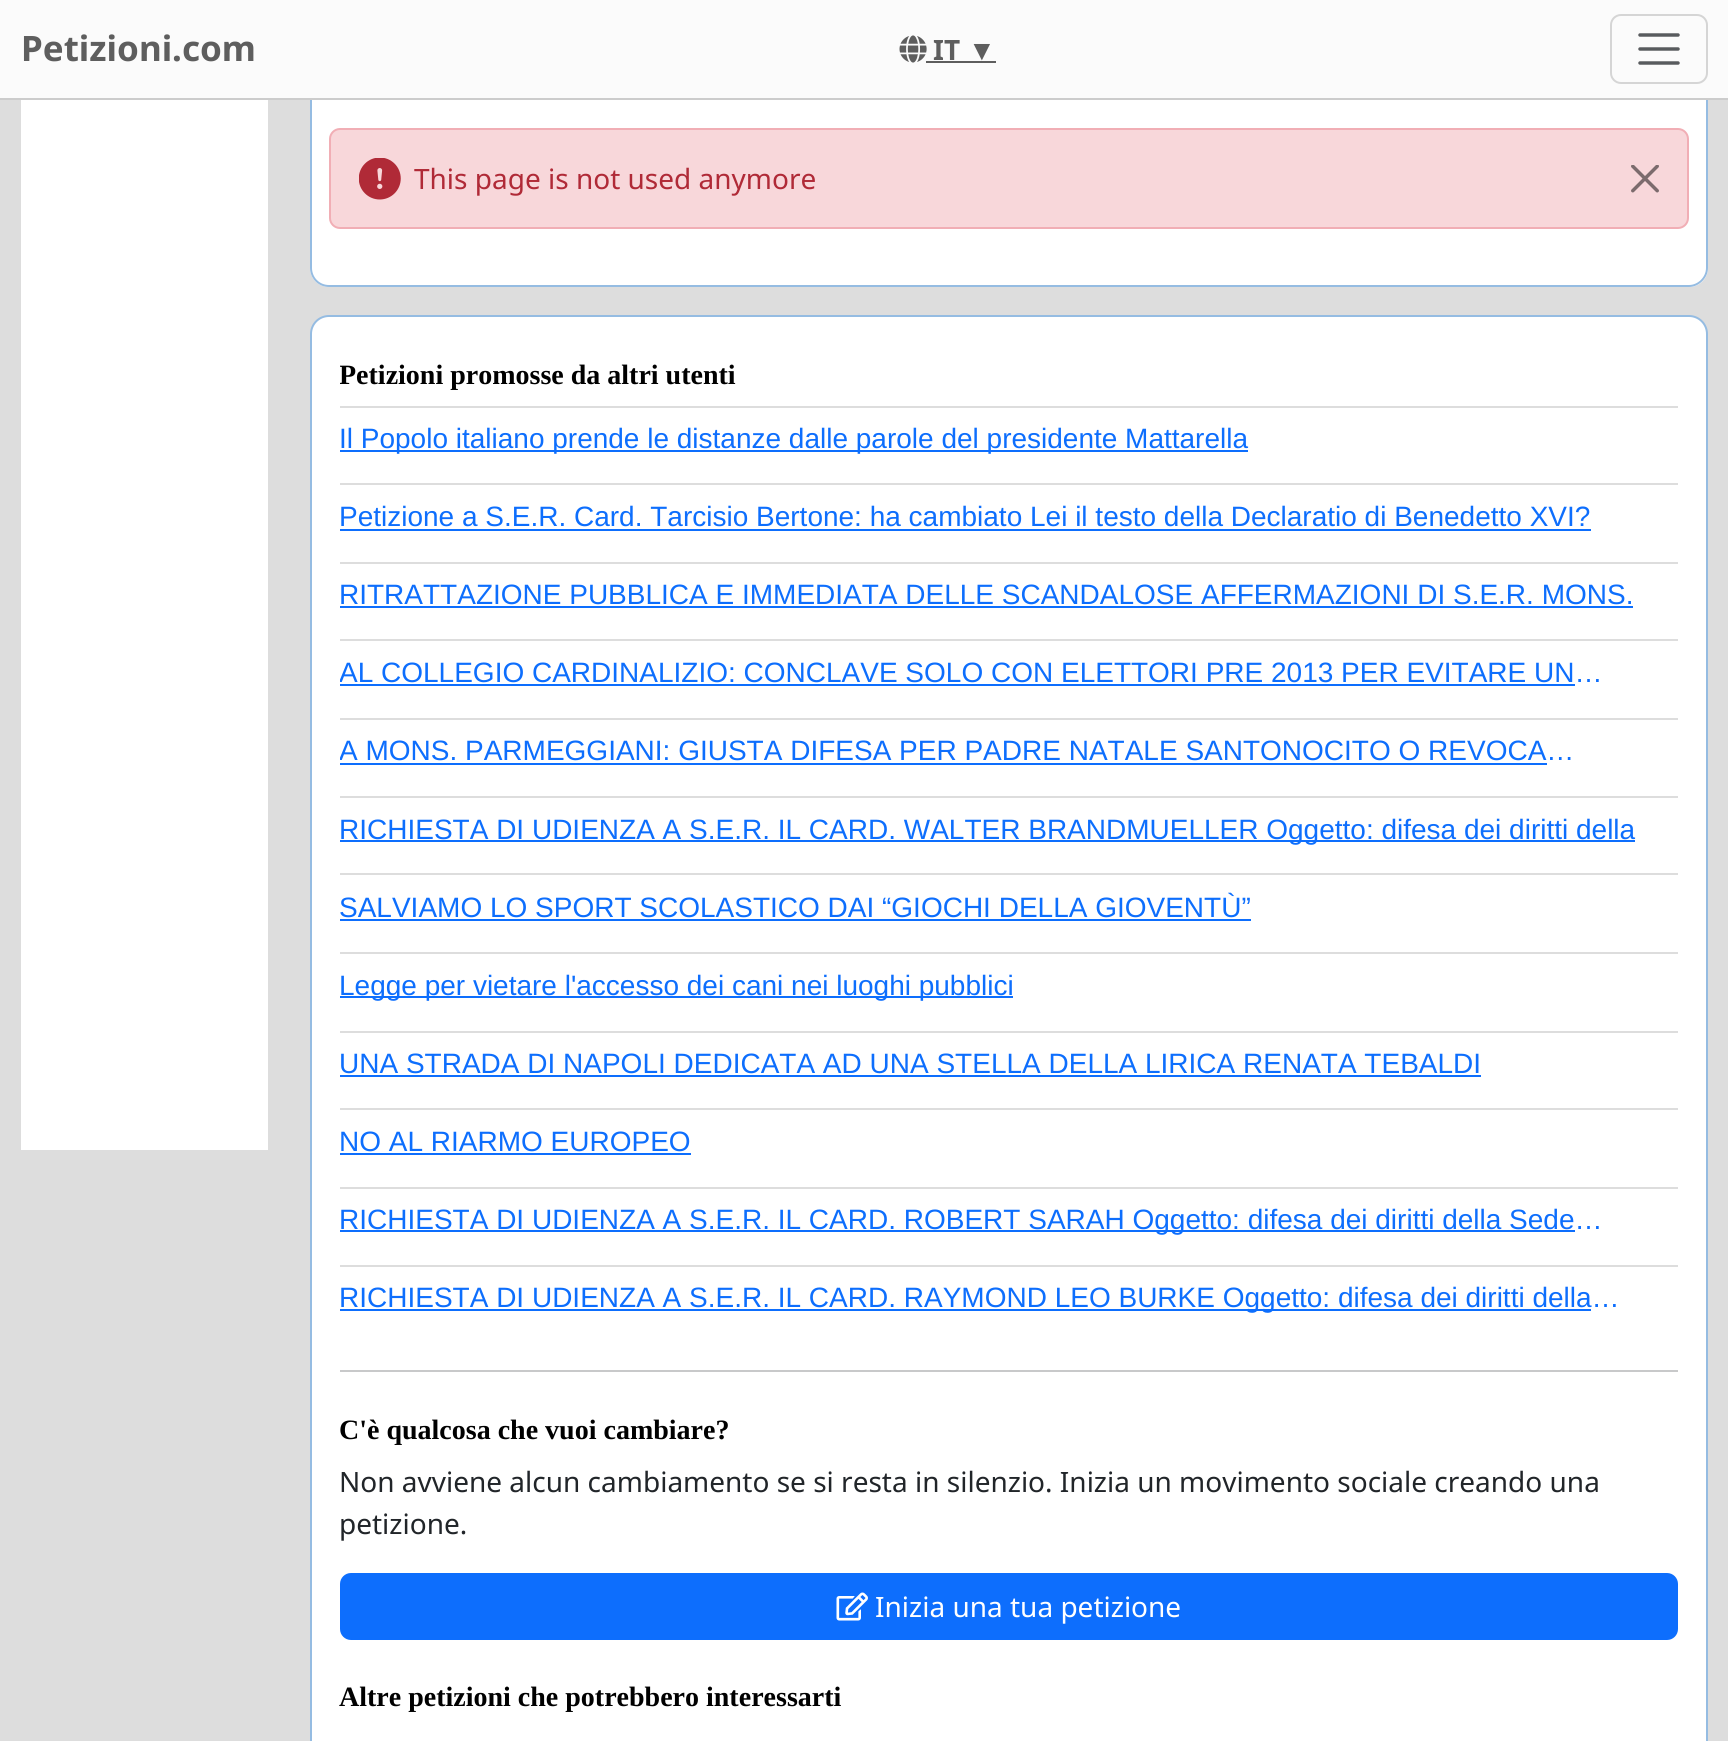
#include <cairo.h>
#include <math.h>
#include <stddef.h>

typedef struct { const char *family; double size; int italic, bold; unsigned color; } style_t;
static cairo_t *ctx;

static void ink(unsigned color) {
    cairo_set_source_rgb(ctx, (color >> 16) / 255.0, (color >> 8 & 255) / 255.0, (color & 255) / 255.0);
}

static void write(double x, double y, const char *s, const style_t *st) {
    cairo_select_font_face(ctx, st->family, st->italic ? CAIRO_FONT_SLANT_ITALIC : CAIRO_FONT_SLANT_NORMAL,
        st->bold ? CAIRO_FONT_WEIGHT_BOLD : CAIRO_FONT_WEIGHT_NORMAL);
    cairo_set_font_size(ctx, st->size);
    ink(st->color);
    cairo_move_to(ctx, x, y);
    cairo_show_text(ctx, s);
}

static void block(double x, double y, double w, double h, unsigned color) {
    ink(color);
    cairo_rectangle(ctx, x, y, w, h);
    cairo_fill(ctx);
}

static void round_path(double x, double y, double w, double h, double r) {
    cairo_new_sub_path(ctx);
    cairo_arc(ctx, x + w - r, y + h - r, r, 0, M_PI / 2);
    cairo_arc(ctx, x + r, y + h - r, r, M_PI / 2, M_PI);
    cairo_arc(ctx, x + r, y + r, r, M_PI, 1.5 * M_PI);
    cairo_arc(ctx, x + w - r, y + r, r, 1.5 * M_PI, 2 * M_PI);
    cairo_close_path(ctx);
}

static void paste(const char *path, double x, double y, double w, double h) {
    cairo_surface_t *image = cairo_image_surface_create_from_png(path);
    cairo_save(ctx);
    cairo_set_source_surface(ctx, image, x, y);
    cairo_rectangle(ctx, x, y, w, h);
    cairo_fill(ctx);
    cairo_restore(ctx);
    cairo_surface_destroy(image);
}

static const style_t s1 = {"Noto Sans", 35, 0, 1, 0x5e5e5e};
static const style_t s2 = {"Noto Sans", 28, 0, 1, 0x5e5e5e};
static const style_t s3 = {"Liberation Sans", 28, 0, 0, 0x5e5e5e};
static const style_t s4 = {"Noto Sans", 28, 0, 0, 0xb02a37};
static const style_t s5 = {"Liberation Serif", 28, 0, 1, 0x000000};
static const style_t s6 = {"Liberation Sans", 28, 0, 0, 0x0d6efd};
static const style_t s7 = {"Noto Sans", 28, 0, 0, 0x212529};
static const style_t s8 = {"Noto Sans", 28, 0, 0, 0xffffff};

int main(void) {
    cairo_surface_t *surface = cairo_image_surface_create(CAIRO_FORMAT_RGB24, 1728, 1741);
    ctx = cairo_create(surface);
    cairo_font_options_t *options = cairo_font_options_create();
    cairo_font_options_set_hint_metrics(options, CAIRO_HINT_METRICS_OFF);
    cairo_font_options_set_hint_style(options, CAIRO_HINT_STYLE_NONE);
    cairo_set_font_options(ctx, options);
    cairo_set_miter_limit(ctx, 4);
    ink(0xdddddd);
    cairo_paint(ctx);
    block(0, 0, 1728, 98, 0xfbfbfb);
    block(0, 98, 1728, 2, 0xcccccc);
    write(21, 61, "Petizioni.com", &s1);
    paste("pic1.png", 899, 35, 28, 28);
    write(933, 60, "IT", &s2);
    block(926, 61, 70, 2, 0x5e5e5e);
    write(968, 60, "▼", &s3);
    round_path(1611, 15, 96, 68, 10);
    ink(0xd5d5d5);
    cairo_stroke(ctx);
    cairo_new_path(ctx);
    cairo_move_to(ctx, 1640, 35);
    cairo_line_to(ctx, 1678, 35);
    cairo_move_to(ctx, 1640, 49);
    cairo_line_to(ctx, 1678, 49);
    cairo_move_to(ctx, 1640, 63);
    cairo_line_to(ctx, 1678, 63);
    ink(0x585b5e);
    cairo_set_line_width(ctx, 3.5);
    cairo_set_line_cap(ctx, CAIRO_LINE_CAP_ROUND);
    cairo_stroke(ctx);
    block(21, 100, 247, 1050, 0xffffff);
    cairo_new_path(ctx);
    cairo_move_to(ctx, 310, 100);
    cairo_line_to(ctx, 1708, 100);
    cairo_line_to(ctx, 1708, 268);
    cairo_curve_to(ctx, 1708, 278.5, 1699.5, 287, 1689, 287);
    cairo_line_to(ctx, 329, 287);
    cairo_curve_to(ctx, 318.5, 287, 310, 278.5, 310, 268);
    cairo_close_path(ctx);
    cairo_fill(ctx);
    ink(0x95bce2);
    cairo_set_fill_rule(ctx, CAIRO_FILL_RULE_EVEN_ODD);
    cairo_new_path(ctx);
    cairo_move_to(ctx, 310, 100);
    cairo_line_to(ctx, 1708, 100);
    cairo_line_to(ctx, 1708, 268);
    cairo_curve_to(ctx, 1708, 278, 1699, 287, 1689, 287);
    cairo_line_to(ctx, 329, 287);
    cairo_curve_to(ctx, 318, 287, 310, 278, 310, 268);
    cairo_close_path(ctx);
    cairo_move_to(ctx, 312, 100);
    cairo_line_to(ctx, 1706, 100);
    cairo_line_to(ctx, 1706, 268);
    cairo_curve_to(ctx, 1706, 277, 1698, 285, 1689, 285);
    cairo_line_to(ctx, 329, 285);
    cairo_curve_to(ctx, 319, 285, 312, 277, 312, 268);
    cairo_close_path(ctx);
    cairo_fill(ctx);
    ink(0xf8d7da);
    round_path(330, 129, 1358, 99, 10);
    cairo_fill_preserve(ctx);
    ink(0xf1aeb5);
    cairo_set_line_width(ctx, 2);
    cairo_set_line_cap(ctx, CAIRO_LINE_CAP_BUTT);
    cairo_stroke(ctx);
    paste("pic2.png", 359, 158, 42, 42);
    write(414, 189, "This page is not used anymore", &s4);
    paste("pic3.png", 1631, 165, 28, 28);
    ink(0xffffff);
    cairo_new_path(ctx);
    cairo_move_to(ctx, 329, 316);
    cairo_line_to(ctx, 1689, 316);
    cairo_curve_to(ctx, 1699, 316, 1707, 324, 1707, 334);
    cairo_line_to(ctx, 1707, 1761);
    cairo_line_to(ctx, 311, 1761);
    cairo_line_to(ctx, 311, 334);
    cairo_curve_to(ctx, 311, 324, 319, 316, 329, 316);
    cairo_close_path(ctx);
    cairo_fill_preserve(ctx);
    ink(0x95bce2);
    cairo_stroke(ctx);
    cairo_save(ctx);
    cairo_set_fill_rule(ctx, CAIRO_FILL_RULE_WINDING);
    cairo_rectangle(ctx, 340, 345, 1338, 47);
    cairo_clip(ctx);
    write(339, 384, "Petizioni promosse da altri utenti", &s5);
    cairo_restore(ctx);
    block(340, 406, 1338, 2, 0xdddddd);
    block(340, 450, 908, 2, 0x0d6efd);
    write(339, 448, "Il Popolo italiano prende le distanze dalle parole del presidente Mattarella", &s6);
    block(340, 483, 1338, 2, 0xdddddd);
    write(339, 526, "Petizione a S.E.R. Card. Tarcisio Bertone: ha cambiato Lei il testo della Declaratio di Benedetto XVI?", &s6);
    block(340, 529, 1251, 2, 0x0d6efd);
    block(340, 562, 1338, 2, 0xdddddd);
    write(339, 604, "RITRATTAZIONE PUBBLICA E IMMEDIATA DELLE SCANDALOSE AFFERMAZIONI DI S.E.R. MONS.", &s6);
    block(340, 606, 1293, 2, 0x0d6efd);
    block(340, 639, 1338, 2, 0xdddddd);
    cairo_save(ctx);
    cairo_set_fill_rule(ctx, CAIRO_FILL_RULE_WINDING);
    cairo_rectangle(ctx, 340, 641, 1310, 49);
    cairo_clip(ctx);
    write(339, 682, "AL COLLEGIO CARDINALIZIO: CONCLAVE SOLO CON ELETTORI PRE 2013 PER EVITARE UN…", &s6);
    cairo_restore(ctx);
    block(340, 684, 1235, 2, 0x0d6efd);
    block(340, 718, 1338, 2, 0xdddddd);
    cairo_save(ctx);
    cairo_set_fill_rule(ctx, CAIRO_FILL_RULE_WINDING);
    cairo_rectangle(ctx, 340, 719, 1310, 49);
    cairo_clip(ctx);
    write(339, 760, "A MONS. PARMEGGIANI: GIUSTA DIFESA PER PADRE NATALE SANTONOCITO O REVOCA…", &s6);
    cairo_restore(ctx);
    block(340, 763, 1207, 2, 0x0d6efd);
    block(340, 796, 1338, 2, 0xdddddd);
    block(340, 840, 1295, 2, 0x0d6efd);
    write(339, 839, "RICHIESTA DI UDIENZA A S.E.R. IL CARD. WALTER BRANDMUELLER Oggetto: difesa dei diritti della", &s6);
    block(340, 873, 1338, 2, 0xdddddd);
    write(339, 917, "SALVIAMO LO SPORT SCOLASTICO DAI “GIOCHI DELLA GIOVENTÙ”", &s6);
    block(340, 919, 911, 2, 0x0d6efd);
    block(340, 952, 1338, 2, 0xdddddd);
    block(340, 996, 673, 2, 0x0d6efd);
    write(339, 995, "Legge per vietare l'accesso dei cani nei luoghi pubblici", &s6);
    block(340, 1031, 1338, 2, 0xdddddd);
    write(339, 1073, "UNA STRADA DI NAPOLI DEDICATA AD UNA STELLA DELLA LIRICA RENATA TEBALDI", &s6);
    block(340, 1075, 1141, 2, 0x0d6efd);
    block(340, 1108, 1338, 2, 0xdddddd);
    write(339, 1151, "NO AL RIARMO EUROPEO", &s6);
    block(340, 1153, 351, 2, 0x0d6efd);
    block(340, 1187, 1338, 2, 0xdddddd);
    block(340, 1230, 1235, 2, 0x0d6efd);
    write(339, 1229, "RICHIESTA DI UDIENZA A S.E.R. IL CARD. ROBERT SARAH Oggetto: difesa dei diritti della Sede…", &s6);
    block(340, 1265, 1338, 2, 0xdddddd);
    block(340, 1309, 1251, 2, 0x0d6efd);
    write(339, 1307, "RICHIESTA DI UDIENZA A S.E.R. IL CARD. RAYMOND LEO BURKE Oggetto: difesa dei diritti della…", &s6);
    block(340, 1370, 1338, 2, 0xc8c9ca);
    write(339, 1439, "C'è qualcosa che vuoi cambiare?", &s5);
    write(339, 1492, "Non avviene alcun cambiamento se si resta in silenzio. Inizia un movimento sociale creando una", &s7);
    write(339, 1534, "petizione.", &s7);
    ink(0x0d6efd);
    round_path(341, 1574, 1336, 65, 10);
    cairo_fill_preserve(ctx);
    cairo_stroke(ctx);
    paste("pic4.png", 836, 1592, 32, 29);
    write(875, 1617, "Inizia una tua petizione", &s8);
    write(339, 1706, "Altre petizioni che potrebbero interessarti", &s5);
    cairo_surface_write_to_png(surface, "screenshot.png");
    cairo_font_options_destroy(options);
    cairo_destroy(ctx);
    cairo_surface_destroy(surface);
    return 0;
}
